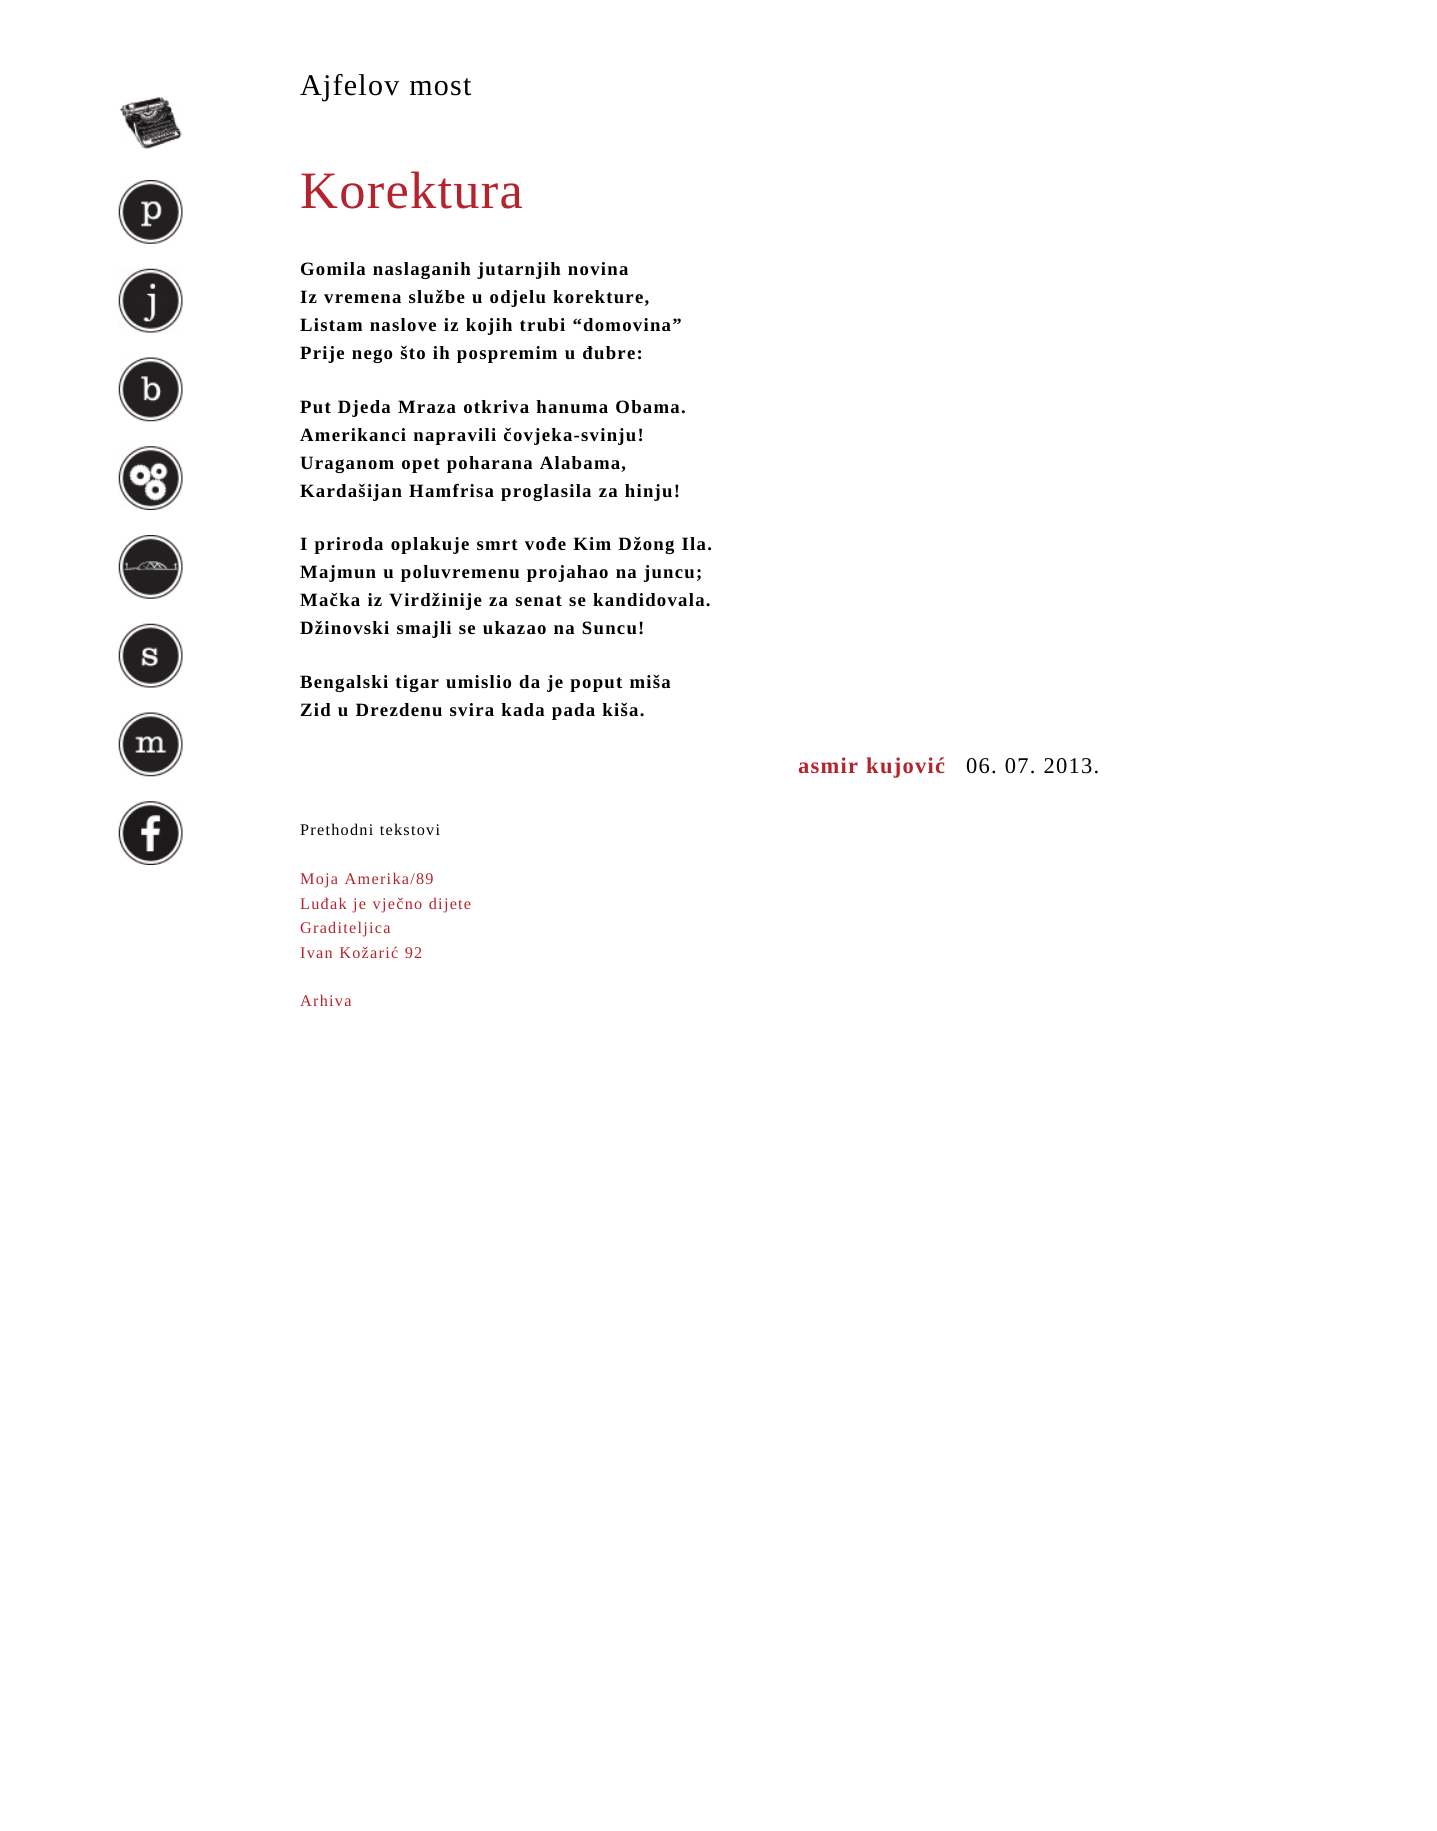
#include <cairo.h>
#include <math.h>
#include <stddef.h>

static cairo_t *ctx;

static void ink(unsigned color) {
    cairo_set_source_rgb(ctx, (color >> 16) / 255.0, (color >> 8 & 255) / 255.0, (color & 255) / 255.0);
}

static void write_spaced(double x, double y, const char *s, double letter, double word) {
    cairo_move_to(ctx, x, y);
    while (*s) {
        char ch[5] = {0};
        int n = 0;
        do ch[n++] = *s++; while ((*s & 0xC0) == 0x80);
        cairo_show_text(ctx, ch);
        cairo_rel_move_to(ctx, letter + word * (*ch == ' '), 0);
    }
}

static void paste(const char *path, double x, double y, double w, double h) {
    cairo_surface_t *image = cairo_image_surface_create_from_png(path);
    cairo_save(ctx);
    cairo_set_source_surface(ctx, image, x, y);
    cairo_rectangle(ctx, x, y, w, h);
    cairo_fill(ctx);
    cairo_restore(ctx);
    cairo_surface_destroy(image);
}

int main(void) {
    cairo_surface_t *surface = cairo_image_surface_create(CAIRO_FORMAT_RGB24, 1437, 1831);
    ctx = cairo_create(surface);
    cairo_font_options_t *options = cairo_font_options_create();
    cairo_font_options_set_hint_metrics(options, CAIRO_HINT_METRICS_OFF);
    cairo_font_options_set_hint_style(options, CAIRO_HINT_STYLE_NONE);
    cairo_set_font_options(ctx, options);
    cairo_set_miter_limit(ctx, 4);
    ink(0xffffff);
    cairo_paint(ctx);
    paste("pic1.png", 119, 97, 63, 52);
    paste("pic2.png", 118, 180, 65, 64);
    paste("pic3.png", 118, 268, 65, 65);
    paste("pic4.png", 118, 357, 65, 65);
    paste("pic5.png", 118, 446, 65, 64);
    paste("pic6.png", 118, 535, 65, 64);
    paste("pic7.png", 118, 623, 65, 65);
    paste("pic8.png", 118, 712, 65, 65);
    paste("pic9.png", 118, 801, 65, 64);
    cairo_select_font_face(ctx, "Liberation Serif", CAIRO_FONT_SLANT_NORMAL, CAIRO_FONT_WEIGHT_NORMAL);
    cairo_set_font_size(ctx, 30);
    ink(0x000000);
    write_spaced(300, 95, "Ajfelov most", 1.25, 0);
    cairo_set_font_size(ctx, 52.5);
    ink(0xb5232e);
    write_spaced(300, 208, "Korektura", 1.25, 0);
    cairo_select_font_face(ctx, "Liberation Serif", CAIRO_FONT_SLANT_NORMAL, CAIRO_FONT_WEIGHT_BOLD);
    cairo_set_font_size(ctx, 18.75);
    ink(0x000000);
    write_spaced(300, 275, "Gomila naslaganih jutarnjih novina", 1.25, 0);
    write_spaced(300, 303, "Iz vremena službe u odjelu korekture,", 1.25, 0);
    write_spaced(300, 331, "Listam naslove iz kojih trubi “domovina”", 1.25, 0);
    write_spaced(300, 359, "Prije nego što ih pospremim u đubre:", 1.25, 0);
    write_spaced(300, 413, "Put Djeda Mraza otkriva hanuma Obama.", 1.25, 0);
    write_spaced(300, 441, "Amerikanci napravili čovjeka-svinju!", 1.25, 0);
    write_spaced(300, 469, "Uraganom opet poharana Alabama,", 1.25, 0);
    write_spaced(300, 497, "Kardašijan Hamfrisa proglasila za hinju!", 1.25, 0);
    write_spaced(300, 550, "I priroda oplakuje smrt vođe Kim Džong Ila.", 1.25, 0);
    write_spaced(300, 578, "Majmun u poluvremenu projahao na juncu;", 1.25, 0);
    write_spaced(300, 606, "Mačka iz Virdžinije za senat se kandidovala.", 1.25, 0);
    write_spaced(300, 634, "Džinovski smajli se ukazao na Suncu!", 1.25, 0);
    write_spaced(300, 688, "Bengalski tigar umislio da je poput miša", 1.25, 0);
    write_spaced(300, 716, "Zid u Drezdenu svira kada pada kiša.", 1.25, 0);
    cairo_set_font_size(ctx, 22.5);
    ink(0xb5232e);
    write_spaced(798, 773, "asmir kujović", 1.25, 0);
    cairo_select_font_face(ctx, "Liberation Serif", CAIRO_FONT_SLANT_NORMAL, CAIRO_FONT_WEIGHT_NORMAL);
    ink(0x000000);
    write_spaced(966, 773, "06. 07. 2013.", 1.25, 0);
    cairo_set_font_size(ctx, 16.25);
    write_spaced(300, 835, "Prethodni tekstovi", 1.25, 0);
    ink(0xb5232e);
    write_spaced(300, 884, "Moja Amerika/89", 1.25, 0);
    write_spaced(300, 909, "Luđak je vječno dijete", 1.25, 0);
    write_spaced(300, 933, "Graditeljica", 1.25, 0);
    write_spaced(300, 958, "Ivan Kožarić 92", 1.25, 0);
    write_spaced(300, 1006, "Arhiva", 1.25, 0);
    cairo_surface_write_to_png(surface, "screenshot.png");
    cairo_font_options_destroy(options);
    cairo_destroy(ctx);
    cairo_surface_destroy(surface);
    return 0;
}
